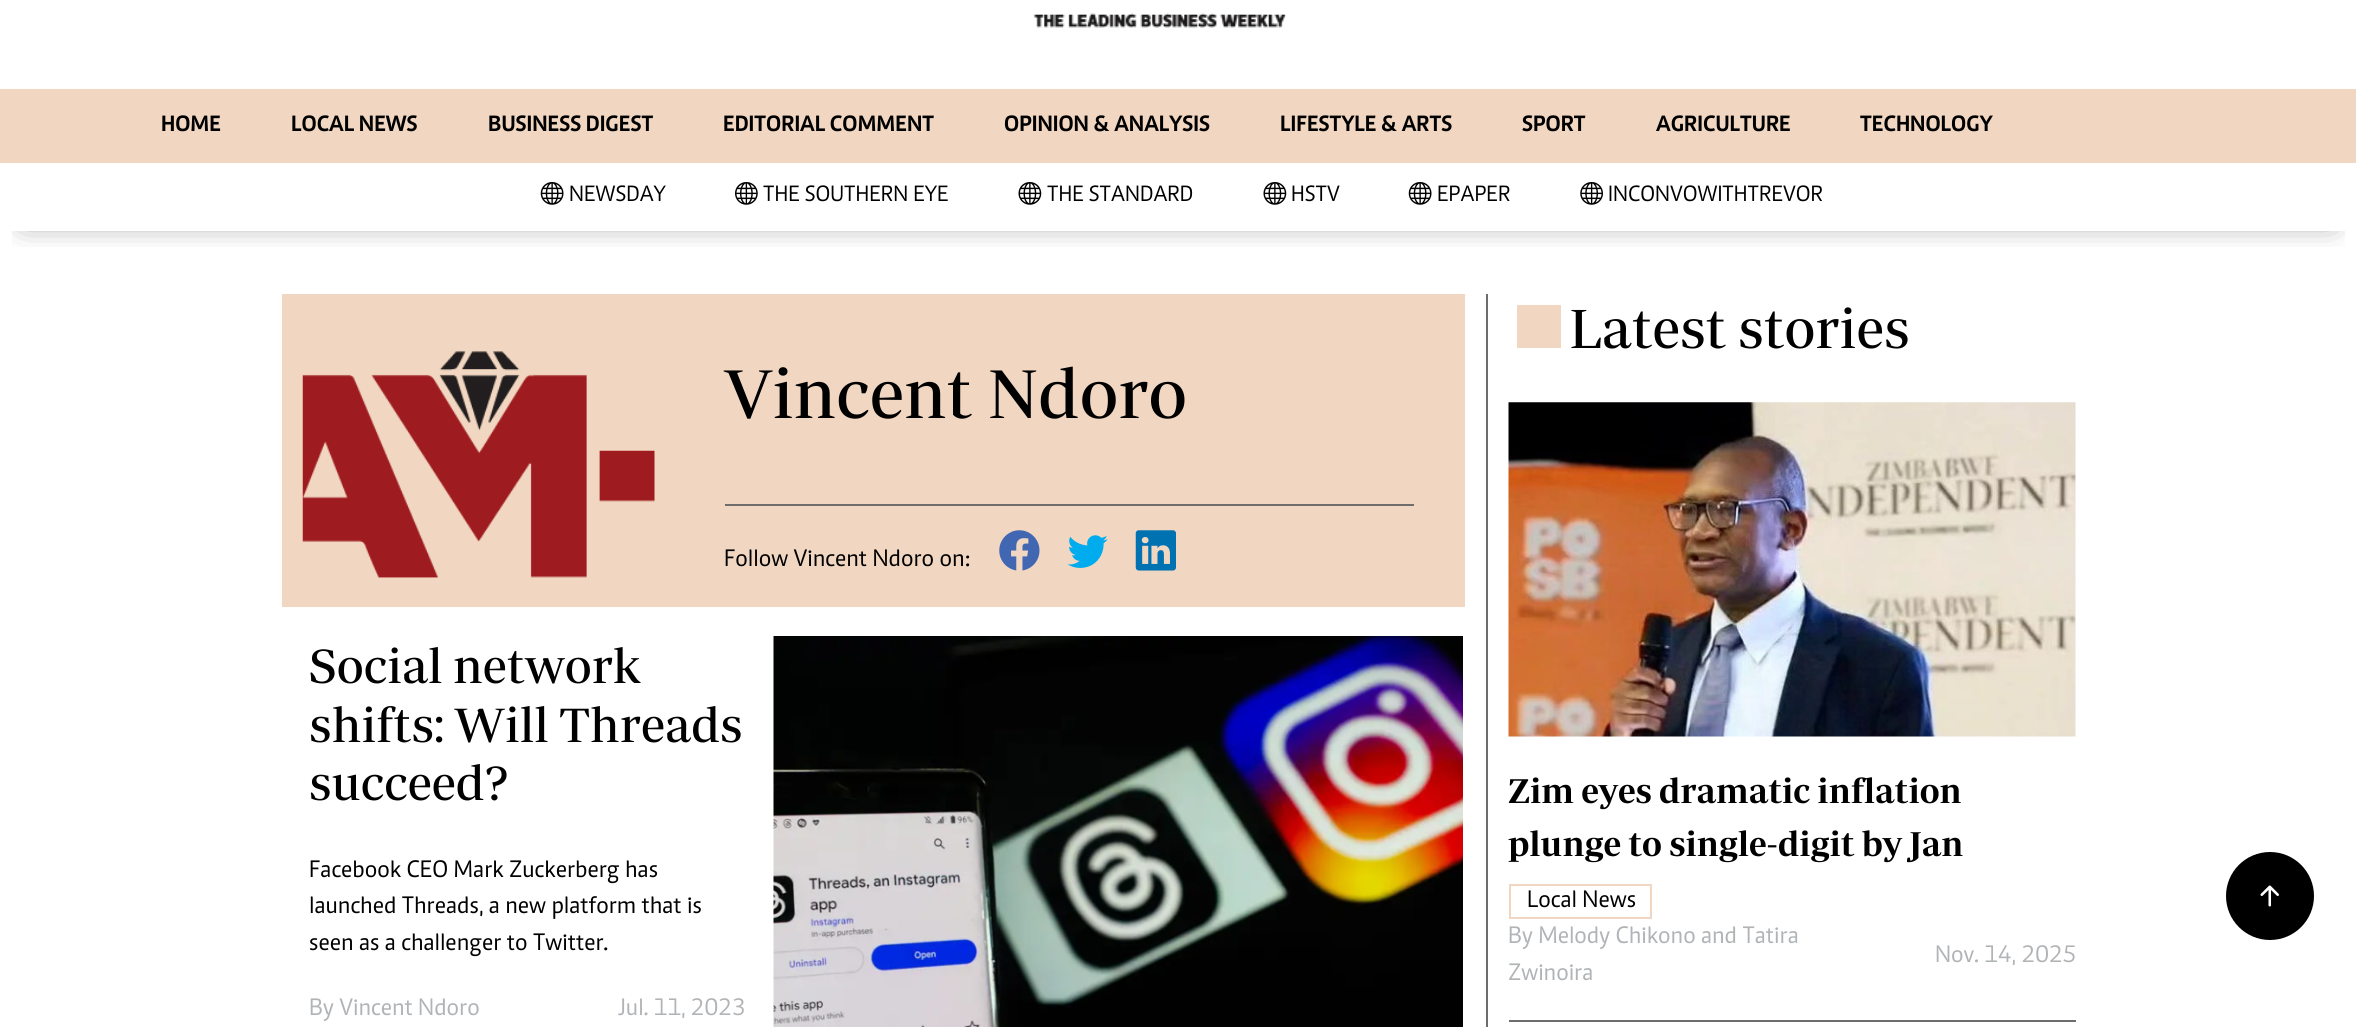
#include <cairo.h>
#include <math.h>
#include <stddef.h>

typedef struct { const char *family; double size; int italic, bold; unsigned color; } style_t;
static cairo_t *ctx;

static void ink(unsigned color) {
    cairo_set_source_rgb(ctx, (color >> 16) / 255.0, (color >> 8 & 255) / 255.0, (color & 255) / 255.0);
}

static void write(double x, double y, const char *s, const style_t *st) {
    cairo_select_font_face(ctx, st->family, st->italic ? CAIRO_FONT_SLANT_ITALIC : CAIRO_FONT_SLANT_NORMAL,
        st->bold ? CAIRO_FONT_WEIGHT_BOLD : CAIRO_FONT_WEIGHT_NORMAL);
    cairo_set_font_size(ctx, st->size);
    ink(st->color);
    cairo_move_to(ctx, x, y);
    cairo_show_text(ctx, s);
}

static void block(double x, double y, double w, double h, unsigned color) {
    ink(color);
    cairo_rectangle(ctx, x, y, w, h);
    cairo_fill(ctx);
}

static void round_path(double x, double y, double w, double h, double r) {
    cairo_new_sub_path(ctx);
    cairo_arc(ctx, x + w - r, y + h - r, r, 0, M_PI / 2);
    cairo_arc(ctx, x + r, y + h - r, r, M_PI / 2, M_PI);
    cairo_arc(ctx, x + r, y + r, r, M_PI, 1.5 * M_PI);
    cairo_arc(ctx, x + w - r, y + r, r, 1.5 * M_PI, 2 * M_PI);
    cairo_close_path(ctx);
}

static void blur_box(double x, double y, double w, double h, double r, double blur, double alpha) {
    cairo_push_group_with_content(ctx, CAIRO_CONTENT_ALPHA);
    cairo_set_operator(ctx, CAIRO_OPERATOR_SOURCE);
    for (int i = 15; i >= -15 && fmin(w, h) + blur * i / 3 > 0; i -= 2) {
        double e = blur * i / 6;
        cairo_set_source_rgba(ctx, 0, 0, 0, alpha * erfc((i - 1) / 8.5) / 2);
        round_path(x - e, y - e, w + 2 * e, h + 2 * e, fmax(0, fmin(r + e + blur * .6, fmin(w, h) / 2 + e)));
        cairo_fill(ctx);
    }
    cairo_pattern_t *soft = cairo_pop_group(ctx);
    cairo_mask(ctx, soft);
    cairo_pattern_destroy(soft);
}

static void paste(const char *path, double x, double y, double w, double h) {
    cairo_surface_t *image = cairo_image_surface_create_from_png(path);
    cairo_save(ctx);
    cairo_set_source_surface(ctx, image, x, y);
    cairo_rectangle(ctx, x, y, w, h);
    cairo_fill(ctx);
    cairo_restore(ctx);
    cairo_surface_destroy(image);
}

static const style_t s1 = {"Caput", 22.75, 0, 1, 0x000000};
static const style_t s2 = {"Caput", 22.75, 0, 0, 0x000000};
static const style_t s3 = {"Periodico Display", 70, 0, 0, 0x000000};
static const style_t s4 = {"Caput", 24.5, 0, 0, 0x000000};
static const style_t s5 = {"Periodico Display", 49, 0, 0, 0x000000};
static const style_t s6 = {"Caput", 24.5, 0, 0, 0xb1b4b7};
static const style_t s7 = {"Periodico Display", 56, 0, 0, 0x000000};
static const style_t s8 = {"Periodico Display SemiBold", 35, 0, 0, 0x000000};

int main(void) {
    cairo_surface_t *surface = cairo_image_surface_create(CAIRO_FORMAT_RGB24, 2356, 1027);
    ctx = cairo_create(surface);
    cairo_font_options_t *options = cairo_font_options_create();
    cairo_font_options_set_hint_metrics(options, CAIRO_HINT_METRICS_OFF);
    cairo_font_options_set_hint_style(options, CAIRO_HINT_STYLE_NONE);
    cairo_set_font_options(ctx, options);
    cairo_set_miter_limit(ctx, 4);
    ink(0xffffff);
    cairo_paint(ctx);
    paste("pic1.png", 1033, 13, 254, 15);
    cairo_save(ctx);
    cairo_rectangle(ctx, 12, 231, 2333, 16);
    cairo_clip(ctx);
    ink(0x000000);
    blur_box(26, 203, 2305, 16, 0, 16, 0.56);
    cairo_restore(ctx);
    block(0, 89, 2356, 74, 0xf1d7c1);
    write(161, 131, "HOME", &s1);
    write(291, 131, "LOCAL NEWS", &s1);
    write(488, 131, "BUSINESS DIGEST", &s1);
    write(723, 131, "EDITORIAL COMMENT", &s1);
    write(1004, 131, "OPINION & ANALYSIS", &s1);
    write(1280, 131, "LIFESTYLE & ARTS", &s1);
    write(1522, 131, "SPORT", &s1);
    write(1656, 131, "AGRICULTURE", &s1);
    write(1860, 131, "TECHNOLOGY", &s1);
    paste("pic2.png", 540, 182, 24, 23);
    write(569, 201, "NEWSDAY", &s2);
    paste("pic3.png", 735, 182, 23, 23);
    write(763, 201, "THE SOUTHERN EYE", &s2);
    paste("pic4.png", 1018, 182, 24, 23);
    write(1047, 201, "THE STANDARD", &s2);
    paste("pic4.png", 1263, 182, 24, 23);
    write(1291, 201, "HSTV", &s2);
    paste("pic2.png", 1408, 182, 24, 23);
    write(1437, 201, "EPAPER", &s2);
    paste("pic5.png", 1580, 182, 23, 23);
    write(1608, 201, "INCONVOWITHTREVOR", &s2);
    block(282, 294, 1183, 313, 0xf1d7c1);
    paste("pic6.png", 302, 351, 353, 227);
    write(724, 418, "Vincent Ndoro", &s3);
    block(725, 504, 689, 2, 0x6e6d6d);
    write(724, 566, "Follow Vincent Ndoro on:", &s4);
    paste("pic7.png", 999, 530, 41, 41);
    paste("pic8.png", 1067, 535, 41, 33);
    paste("pic9.png", 1135, 530, 41, 41);
    write(309, 683, "Social network", &s5);
    write(309, 742, "shifts: Will Threads", &s5);
    write(309, 800, "succeed?", &s5);
    write(309, 877, "Facebook CEO Mark Zuckerberg has", &s4);
    write(309, 913, "launched Threads, a new platform that is", &s4);
    write(309, 950, "seen as a challenger to Twitter.", &s4);
    write(309, 1015, "By Vincent Ndoro", &s6);
    write(618, 1015, "Jul. 11, 2023", &s6);
    paste("pic10.png", 773, 636, 690, 391);
    block(1486, 294, 2, 733, 0x6e6d6d);
    block(1517, 305, 44, 43, 0xf1d7c1);
    write(1569, 348, "Latest stories", &s7);
    block(1509, 1020, 567, 2, 0x6e6d6d);
    paste("pic11.png", 1508, 402, 568, 335);
    write(1508, 803, "Zim eyes dramatic inflation", &s8);
    write(1508, 856, "plunge to single-digit by Jan", &s8);
    cairo_rectangle(ctx, 1510, 885, 141, 33);
    ink(0xf1d7c1);
    cairo_stroke(ctx);
    write(1527, 907, "Local News", &s4);
    write(1508, 943, "By Melody Chikono and Tatira", &s6);
    write(1508, 980, "Zwinoira", &s6);
    write(1935, 962, "Nov. 14, 2025", &s6);
    ink(0x000000);
    cairo_new_path(ctx);
    cairo_arc(ctx, 2270, 896, 44, 0, 2 * M_PI);
    cairo_fill(ctx);
    paste("pic12.png", 2260, 885, 19, 22);
    cairo_surface_write_to_png(surface, "screenshot.png");
    cairo_font_options_destroy(options);
    cairo_destroy(ctx);
    cairo_surface_destroy(surface);
    return 0;
}
